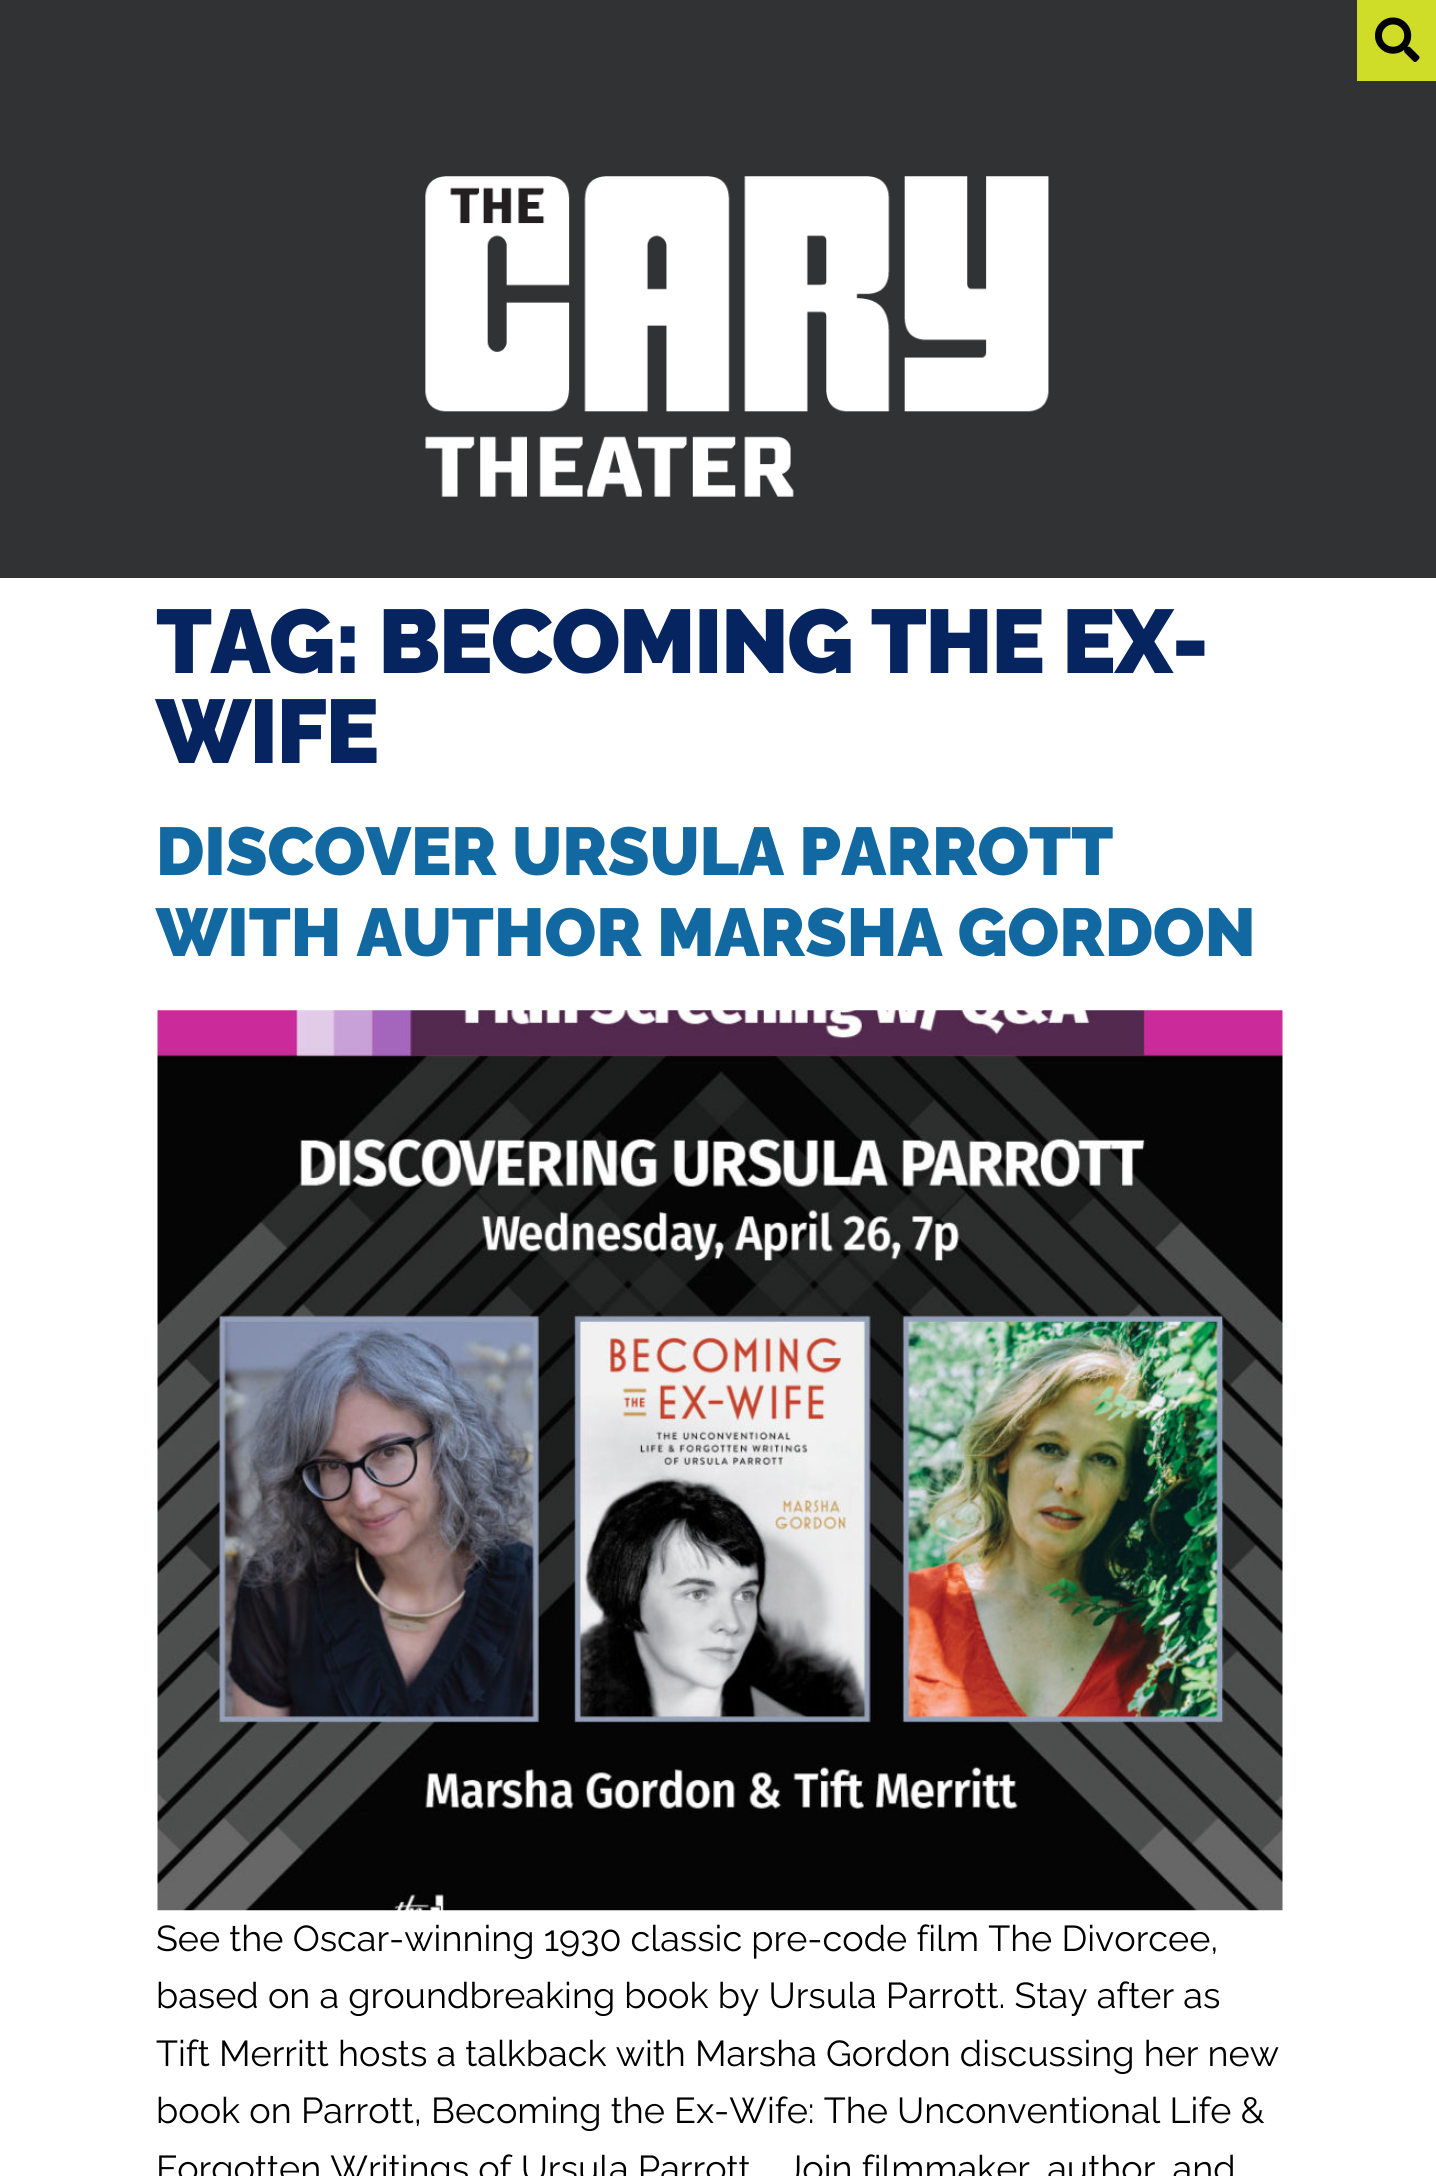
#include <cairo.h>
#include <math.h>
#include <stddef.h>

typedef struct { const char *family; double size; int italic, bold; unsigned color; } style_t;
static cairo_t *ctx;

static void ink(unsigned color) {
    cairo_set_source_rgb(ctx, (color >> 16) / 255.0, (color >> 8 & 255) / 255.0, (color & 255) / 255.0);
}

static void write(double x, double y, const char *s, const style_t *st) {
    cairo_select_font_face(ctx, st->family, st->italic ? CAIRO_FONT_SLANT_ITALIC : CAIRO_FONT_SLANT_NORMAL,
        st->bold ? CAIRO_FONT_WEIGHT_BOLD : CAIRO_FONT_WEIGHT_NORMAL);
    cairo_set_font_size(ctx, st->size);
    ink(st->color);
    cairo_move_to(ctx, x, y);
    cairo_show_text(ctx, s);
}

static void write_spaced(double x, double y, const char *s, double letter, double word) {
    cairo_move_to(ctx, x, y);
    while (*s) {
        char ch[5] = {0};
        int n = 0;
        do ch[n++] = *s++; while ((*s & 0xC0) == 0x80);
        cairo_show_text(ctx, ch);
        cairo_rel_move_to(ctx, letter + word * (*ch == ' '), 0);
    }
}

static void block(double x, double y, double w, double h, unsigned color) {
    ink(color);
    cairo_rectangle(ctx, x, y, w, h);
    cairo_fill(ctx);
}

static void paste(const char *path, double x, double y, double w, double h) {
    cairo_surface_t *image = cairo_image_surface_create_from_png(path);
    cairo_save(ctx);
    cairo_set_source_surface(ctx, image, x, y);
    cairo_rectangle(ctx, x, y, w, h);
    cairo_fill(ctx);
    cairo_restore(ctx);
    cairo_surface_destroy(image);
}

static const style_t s1 = {"Raleway Black", 67.5, 0, 0, 0x1269a2};
static const style_t s2 = {"Raleway", 36, 0, 0, 0x000000};

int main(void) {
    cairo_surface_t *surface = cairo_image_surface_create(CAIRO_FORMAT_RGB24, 1436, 2176);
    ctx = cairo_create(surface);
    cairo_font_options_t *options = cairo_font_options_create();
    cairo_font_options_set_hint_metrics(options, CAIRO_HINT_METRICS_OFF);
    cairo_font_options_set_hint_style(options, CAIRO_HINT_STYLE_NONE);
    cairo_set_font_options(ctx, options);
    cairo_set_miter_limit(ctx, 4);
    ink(0xffffff);
    cairo_paint(ctx);
    block(0, 0, 1436, 578, 0x313233);
    paste("pic1.png", 425, 176, 624, 321);
    block(1357, 0, 79, 81, 0xd0dd28);
    paste("pic2.png", 1375, 17, 45, 45);
    cairo_select_font_face(ctx, "Raleway Black", CAIRO_FONT_SLANT_NORMAL, CAIRO_FONT_WEIGHT_NORMAL);
    cairo_set_font_size(ctx, 90);
    ink(0x052460);
    write_spaced(156, 673, "TAG: BECOMING THE EX-", -1.6, 0);
    write_spaced(156, 763, "WIFE", -1.6, 0);
    write(156, 875, "DISCOVER URSULA PARROTT", &s1);
    write(156, 956, "WITH AUTHOR MARSHA GORDON", &s1);
    paste("pic3.png", 157, 1010, 1126, 901);
    write(156, 1951, "See the Oscar-winning 1930 classic pre-code film The Divorcee,", &s2);
    write(156, 2008, "based on a groundbreaking book by Ursula Parrott. Stay after as", &s2);
    write(156, 2066, "Tift Merritt hosts a talkback with Marsha Gordon discussing her new", &s2);
    write(156, 2123, "book on Parrott, Becoming the Ex-Wife: The Unconventional Life &", &s2);
    write(156, 2181, "Forgotten Writings of Ursula Parrott.   Join filmmaker, author, and", &s2);
    cairo_surface_write_to_png(surface, "screenshot.png");
    cairo_font_options_destroy(options);
    cairo_destroy(ctx);
    cairo_surface_destroy(surface);
    return 0;
}
